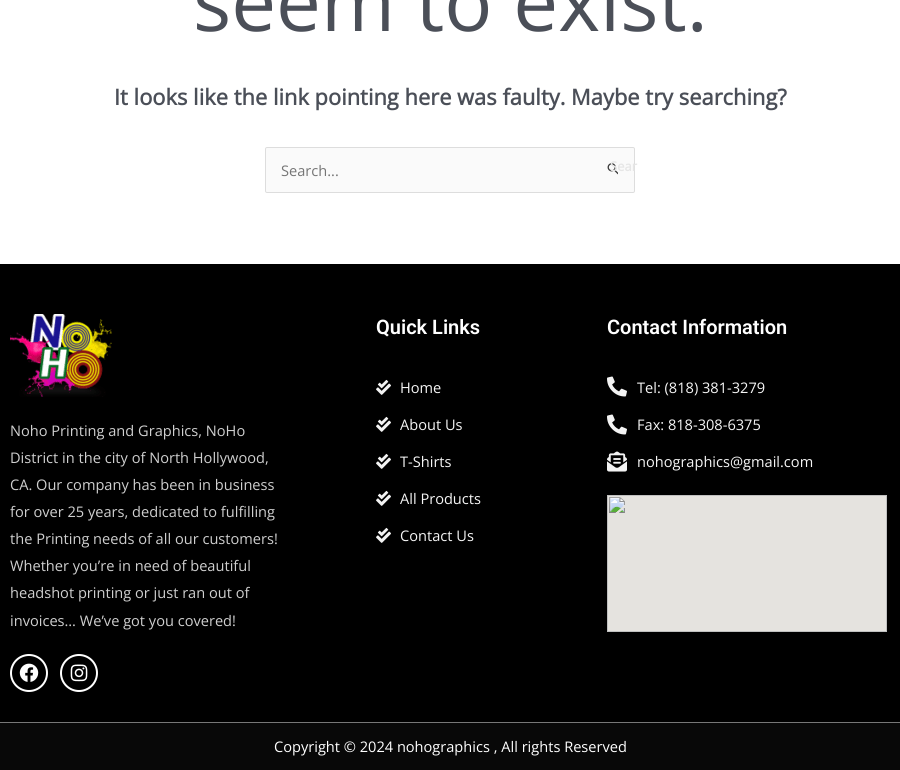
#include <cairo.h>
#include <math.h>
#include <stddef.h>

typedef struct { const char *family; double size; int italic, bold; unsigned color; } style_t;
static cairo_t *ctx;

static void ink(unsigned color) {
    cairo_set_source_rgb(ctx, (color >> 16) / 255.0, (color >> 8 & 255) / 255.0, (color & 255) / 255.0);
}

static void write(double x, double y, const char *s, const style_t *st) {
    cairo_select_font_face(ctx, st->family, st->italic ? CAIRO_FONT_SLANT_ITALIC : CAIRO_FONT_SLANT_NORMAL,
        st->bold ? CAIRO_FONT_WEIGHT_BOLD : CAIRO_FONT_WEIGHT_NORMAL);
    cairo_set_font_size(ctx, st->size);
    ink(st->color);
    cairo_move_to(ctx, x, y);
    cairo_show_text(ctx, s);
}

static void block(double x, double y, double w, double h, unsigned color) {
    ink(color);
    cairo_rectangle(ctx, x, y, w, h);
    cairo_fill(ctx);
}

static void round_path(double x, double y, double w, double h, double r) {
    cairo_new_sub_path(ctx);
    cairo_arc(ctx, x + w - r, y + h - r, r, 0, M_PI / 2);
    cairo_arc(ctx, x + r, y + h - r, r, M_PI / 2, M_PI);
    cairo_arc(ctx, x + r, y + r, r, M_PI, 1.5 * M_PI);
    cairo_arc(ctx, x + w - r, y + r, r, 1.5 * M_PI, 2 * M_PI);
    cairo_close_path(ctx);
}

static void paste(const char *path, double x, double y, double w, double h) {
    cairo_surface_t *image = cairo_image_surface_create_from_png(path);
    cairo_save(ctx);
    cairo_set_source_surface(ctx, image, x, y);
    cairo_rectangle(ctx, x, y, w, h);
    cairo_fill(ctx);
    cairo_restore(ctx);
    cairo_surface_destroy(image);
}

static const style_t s1 = {"Open Sans", 80, 0, 0, 0x4b4f58};
static const style_t s2 = {"Open Sans", 21.9, 0, 1, 0x4b4f58};
static const style_t s3 = {"Open Sans", 14.6, 0, 0, 0x757575};
static const style_t s4 = {"Open Sans", 13, 0, 1, 0xe6e6e6};
static const style_t s5 = {"Open Sans", 14.6, 0, 0, 0xcfcfcf};
static const style_t s6 = {"Roboto SemiBold", 20, 0, 0, 0xffffff};
static const style_t s7 = {"Open Sans", 14.6, 0, 0, 0xf5f5f5};
static const style_t s8 = {"Open Sans", 14.6, 0, 0, 0xffffff};

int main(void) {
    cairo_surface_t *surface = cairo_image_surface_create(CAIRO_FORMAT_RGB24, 900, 770);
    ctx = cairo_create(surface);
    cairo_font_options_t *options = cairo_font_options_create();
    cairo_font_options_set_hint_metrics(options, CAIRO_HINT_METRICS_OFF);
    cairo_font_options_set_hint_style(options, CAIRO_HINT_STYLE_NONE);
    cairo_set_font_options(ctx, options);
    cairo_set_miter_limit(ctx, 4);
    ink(0xffffff);
    cairo_paint(ctx);
    write(193, 31, "seem to exist.", &s1);
    write(114, 105, "It looks like the link pointing here was faulty. Maybe try searching?", &s2);
    ink(0xfafafa);
    round_path(265.5, 147.5, 369, 45, 1.5);
    cairo_fill_preserve(ctx);
    ink(0xdddddd);
    cairo_set_line_width(ctx, 1);
    cairo_stroke(ctx);
    write(281, 176, "Search...", &s3);
    paste("pic1.png", 607, 163, 11, 12);
    write(610, 171, "Sear", &s4);
    block(0, 264, 900, 458, 0x000000);
    paste("pic2.png", 10, 314, 102, 83);
    write(10, 436, "Noho Printing and Graphics, NoHo", &s5);
    write(10, 463, "District in the city of North Hollywood,", &s5);
    write(10, 490, "CA. Our company has been in business", &s5);
    write(10, 517, "for over 25 years, dedicated to fulfilling", &s5);
    write(10, 544, "the Printing needs of all our customers!", &s5);
    write(10, 571, "Whether you’re in need of beautiful", &s5);
    write(10, 598, "headshot printing or just ran out of", &s5);
    write(10, 626, "invoices… We’ve got you covered!", &s5);
    cairo_new_path(ctx);
    cairo_arc(ctx, 29, 673, 18, 0, 2 * M_PI);
    ink(0xffffff);
    cairo_set_line_width(ctx, 2);
    cairo_stroke(ctx);
    paste("pic3.png", 19, 663, 20, 19);
    cairo_arc(ctx, 79, 673, 18, 0, 2 * M_PI);
    cairo_stroke(ctx);
    paste("pic4.png", 70, 664, 18, 18);
    write(376, 334, "Quick Links", &s6);
    paste("pic5.png", 376, 379, 15, 16);
    write(400, 393, "Home", &s7);
    paste("pic5.png", 376, 416, 15, 16);
    write(400, 430, "About Us", &s7);
    paste("pic5.png", 376, 453, 15, 16);
    write(400, 467, "T-Shirts", &s7);
    paste("pic5.png", 376, 490, 15, 16);
    write(400, 504, "All Products", &s7);
    paste("pic5.png", 376, 527, 15, 16);
    write(400, 541, "Contact Us", &s7);
    write(607, 334, "Contact Information", &s6);
    paste("pic6.png", 607, 376, 20, 21);
    write(637, 393, "Tel: (818) 381-3279", &s7);
    paste("pic6.png", 607, 414, 20, 21);
    write(637, 430, "Fax: 818-308-6375", &s7);
    paste("pic7.png", 607, 451, 20, 21);
    write(637, 467, "nohographics@gmail.com", &s7);
    paste("pic8.png", 607, 495, 280, 137);
    block(0, 723, 900, 47, 0x080808);
    block(0, 722, 900, 1, 0x777777);
    write(274, 752, "Copyright © 2024 nohographics , All rights Reserved", &s8);
    cairo_surface_write_to_png(surface, "screenshot.png");
    cairo_font_options_destroy(options);
    cairo_destroy(ctx);
    cairo_surface_destroy(surface);
    return 0;
}
